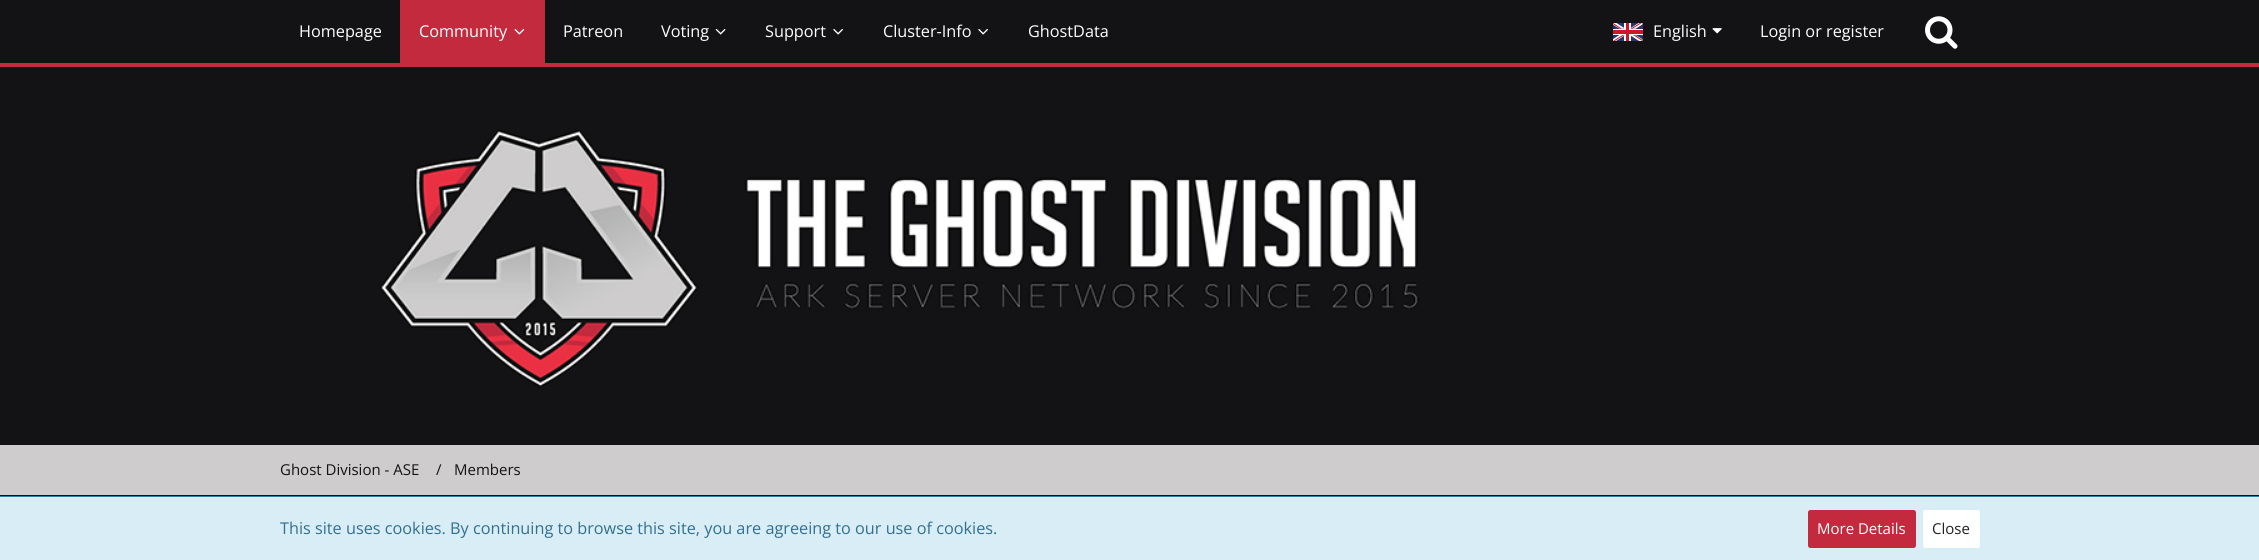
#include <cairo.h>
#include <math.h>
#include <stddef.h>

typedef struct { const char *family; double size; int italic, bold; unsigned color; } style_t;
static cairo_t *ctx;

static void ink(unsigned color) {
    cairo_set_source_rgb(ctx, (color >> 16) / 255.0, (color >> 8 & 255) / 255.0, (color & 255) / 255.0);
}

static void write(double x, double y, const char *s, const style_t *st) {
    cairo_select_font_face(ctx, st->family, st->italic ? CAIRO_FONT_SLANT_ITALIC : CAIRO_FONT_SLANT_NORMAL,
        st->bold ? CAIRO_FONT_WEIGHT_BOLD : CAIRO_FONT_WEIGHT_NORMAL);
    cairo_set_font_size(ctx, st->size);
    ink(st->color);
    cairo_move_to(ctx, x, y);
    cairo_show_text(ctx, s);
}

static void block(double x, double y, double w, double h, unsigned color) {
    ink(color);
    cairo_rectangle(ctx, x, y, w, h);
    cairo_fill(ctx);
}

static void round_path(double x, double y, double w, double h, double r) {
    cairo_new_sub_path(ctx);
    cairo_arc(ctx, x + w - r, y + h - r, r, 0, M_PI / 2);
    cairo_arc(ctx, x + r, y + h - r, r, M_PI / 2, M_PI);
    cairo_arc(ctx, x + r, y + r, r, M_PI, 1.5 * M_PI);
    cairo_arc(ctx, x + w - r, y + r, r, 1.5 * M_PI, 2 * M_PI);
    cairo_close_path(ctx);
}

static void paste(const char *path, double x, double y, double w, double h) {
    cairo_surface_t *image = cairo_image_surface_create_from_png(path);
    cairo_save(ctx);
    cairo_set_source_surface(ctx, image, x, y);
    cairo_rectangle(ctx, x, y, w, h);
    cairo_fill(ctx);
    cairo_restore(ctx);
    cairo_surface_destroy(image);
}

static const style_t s1 = {"Open Sans", 16.25, 0, 0, 0xffffff};
static const style_t s2 = {"Open Sans", 15, 0, 0, 0x131315};
static const style_t s3 = {"Open Sans", 16.25, 0, 0, 0x31708f};
static const style_t s4 = {"Open Sans", 15, 0, 0, 0xffffff};
static const style_t s5 = {"Open Sans", 15, 0, 0, 0x212121};

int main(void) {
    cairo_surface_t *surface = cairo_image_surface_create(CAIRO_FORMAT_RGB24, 2259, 560);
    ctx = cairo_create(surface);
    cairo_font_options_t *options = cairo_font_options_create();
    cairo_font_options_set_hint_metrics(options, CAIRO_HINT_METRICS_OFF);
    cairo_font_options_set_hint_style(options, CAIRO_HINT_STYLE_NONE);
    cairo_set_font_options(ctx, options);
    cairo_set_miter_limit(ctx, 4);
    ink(0x131315);
    cairo_paint(ctx);
    block(0, 63, 2259, 4, 0xc32a3e);
    write(299, 37, "Homepage", &s1);
    block(400, 0, 145, 63, 0xc32a3e);
    write(419, 37, "Community", &s1);
    paste("pic1.png", 514, 28, 11, 7);
    write(563, 37, "Patreon", &s1);
    write(661, 37, "Voting", &s1);
    paste("pic2.png", 715, 28, 11, 7);
    write(765, 37, "Support", &s1);
    paste("pic3.png", 833, 28, 10, 7);
    write(883, 37, "Cluster-Info", &s1);
    paste("pic3.png", 978, 28, 10, 7);
    write(1028, 37, "GhostData", &s1);
    paste("pic4.png", 1613, 23, 30, 18);
    write(1653, 37, "English", &s1);
    paste("pic5.png", 1712, 28, 10, 6);
    write(1760, 37, "Login or register", &s1);
    paste("pic6.png", 1925, 16, 33, 33);
    paste("pic7.png", 380, 130, 1039, 258);
    block(0, 445, 2259, 50, 0xcecccd);
    write(280, 475, "Ghost Division - ASE", &s2);
    write(436, 475, "/", &s2);
    write(454, 475, "Members", &s2);
    block(0, 497, 2259, 63, 0xd9edf7);
    block(0, 496, 2259, 1, 0x337fa5);
    write(280, 534, "This site uses cookies. By continuing to browse this site, you are agreeing to our use of cookies.", &s3);
    ink(0xc32a3e);
    round_path(1808, 510, 108, 38, 2.5);
    cairo_fill(ctx);
    write(1817, 534, "More Details", &s4);
    round_path(1923, 510, 57, 38, 2.5);
    cairo_fill(ctx);
    write(1932, 534, "Close", &s5);
    cairo_surface_write_to_png(surface, "screenshot.png");
    cairo_font_options_destroy(options);
    cairo_destroy(ctx);
    cairo_surface_destroy(surface);
    return 0;
}
